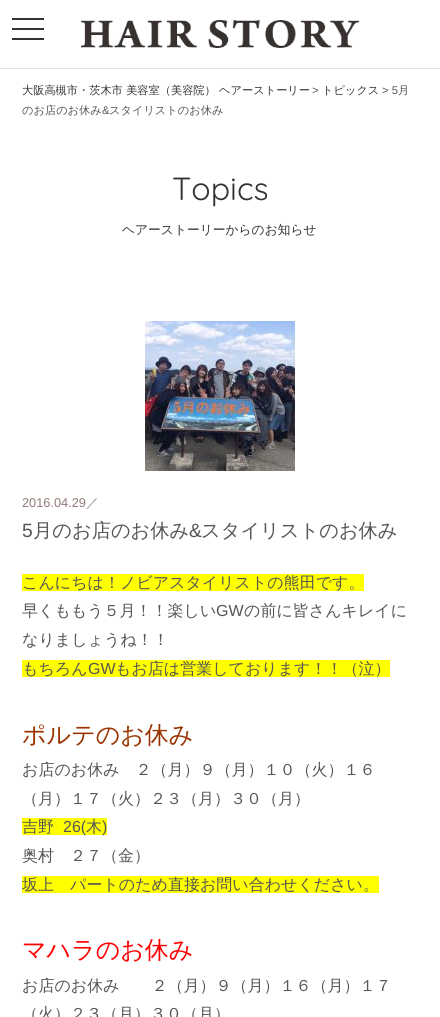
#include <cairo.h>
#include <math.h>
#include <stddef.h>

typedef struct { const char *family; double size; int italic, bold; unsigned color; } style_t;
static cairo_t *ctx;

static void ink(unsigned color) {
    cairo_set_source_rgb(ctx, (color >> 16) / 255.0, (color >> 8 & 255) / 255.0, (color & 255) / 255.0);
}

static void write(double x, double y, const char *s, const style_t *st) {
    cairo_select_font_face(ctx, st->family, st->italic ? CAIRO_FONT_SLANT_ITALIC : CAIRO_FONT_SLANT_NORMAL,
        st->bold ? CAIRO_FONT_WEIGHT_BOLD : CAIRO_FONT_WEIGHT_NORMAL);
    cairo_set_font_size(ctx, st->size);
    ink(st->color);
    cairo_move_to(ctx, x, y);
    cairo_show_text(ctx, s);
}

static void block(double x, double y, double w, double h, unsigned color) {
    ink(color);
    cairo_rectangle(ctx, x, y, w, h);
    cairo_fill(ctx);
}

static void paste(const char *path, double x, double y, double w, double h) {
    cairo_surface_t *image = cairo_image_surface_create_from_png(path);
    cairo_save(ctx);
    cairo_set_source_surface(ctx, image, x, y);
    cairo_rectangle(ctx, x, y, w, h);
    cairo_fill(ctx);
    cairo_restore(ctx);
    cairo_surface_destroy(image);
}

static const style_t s1 = {"WenQuanYi Zen Hei Medium", 11.2, 0, 0, 0x36322f};
static const style_t s2 = {"Liberation Sans", 11.2, 0, 0, 0x555555};
static const style_t s3 = {"WenQuanYi Zen Hei Medium", 11.2, 0, 0, 0x555555};
static const style_t s4 = {"Quicksand Light", 32, 0, 0, 0x36322f};
static const style_t s5 = {"WenQuanYi Zen Hei Medium", 12.75, 0, 0, 0x36322f};
static const style_t s6 = {"Liberation Sans", 12.75, 0, 0, 0x907c75};
static const style_t s7 = {"WenQuanYi Zen Hei Medium", 12.75, 0, 0, 0x907c75};
static const style_t s8 = {"Liberation Sans", 19.25, 0, 0, 0x555555};
static const style_t s9 = {"WenQuanYi Zen Hei Medium", 19.25, 0, 0, 0x555555};
static const style_t s10 = {"WenQuanYi Zen Hei Medium", 16, 0, 0, 0x555555};
static const style_t s11 = {"Liberation Sans", 16, 0, 0, 0x555555};
static const style_t s12 = {"WenQuanYi Zen Hei Medium", 24, 0, 0, 0x993300};
static const style_t s13 = {"WenQuanYi Zen Hei Medium", 24, 0, 0, 0xff0000};

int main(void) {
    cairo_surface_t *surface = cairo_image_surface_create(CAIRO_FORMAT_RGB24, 440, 1017);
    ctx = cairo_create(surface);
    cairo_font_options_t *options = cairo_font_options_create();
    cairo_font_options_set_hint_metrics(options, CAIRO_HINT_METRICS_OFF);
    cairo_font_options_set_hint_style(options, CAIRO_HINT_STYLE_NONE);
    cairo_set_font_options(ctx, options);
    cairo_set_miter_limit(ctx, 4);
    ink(0xffffff);
    cairo_paint(ctx);
    block(12, 28, 32, 2, 0x333333);
    block(12, 18, 32, 2, 0x333333);
    block(12, 38, 32, 2, 0x333333);
    block(0, 68, 440, 1, 0xe8e0db);
    paste("pic1.png", 81, 20, 278, 28);
    write(22, 94, "大阪高槻市・茨木市 美容室（美容院） ヘアーストーリー", &s1);
    write(312, 94, ">", &s2);
    write(322, 94, "トピックス", &s1);
    write(382, 94, "> 5", &s2);
    write(398, 94, "月", &s3);
    write(22, 114, "のお店のお休み", &s3);
    write(102, 114, "&", &s2);
    write(109, 114, "スタイリストのお休み", &s3);
    write(172, 200, "Topics", &s4);
    write(122, 234, "ヘアーストーリーからのお知らせ", &s5);
    paste("pic2.png", 145, 321, 150, 150);
    write(22, 507, "2016.04.29", &s6);
    write(86, 507, "／", &s7);
    write(22, 537, "5", &s8);
    write(33, 537, "月のお店のお休み", &s9);
    write(189, 537, "&", &s8);
    write(201, 537, "スタイリストのお休み", &s9);
    block(22, 574, 342, 17, 0xffff00);
    write(22, 588, "こんにちは！ノビアスタイリストの熊田です。", &s10);
    write(22, 616, "早くももう５月！！楽しい", &s10);
    write(216, 616, "GW", &s11);
    write(244, 616, "の前に皆さんキレイに", &s10);
    write(22, 645, "なりましょうね！！", &s10);
    block(22, 660, 368, 17, 0xffff00);
    write(22, 674, "もちろん", &s10);
    write(88, 674, "GW", &s11);
    write(115, 674, "もお店は営業しております！！（泣）", &s10);
    write(22, 743, "ポルテのお休み", &s12);
    write(22, 775, "お店のお休み　２（月）９（月）１０（火）１６", &s10);
    write(22, 804, "（月）１７（火）２３（月）３０（月）", &s10);
    block(22, 818, 85, 17, 0xffff00);
    write(22, 832, "吉野", &s10);
    write(63, 832, "26(", &s11);
    write(86, 832, "木", &s10);
    write(102, 832, ")", &s11);
    write(22, 861, "奥村　２７（金）", &s10);
    block(22, 876, 357, 17, 0xffff00);
    write(22, 890, "坂上　パートのため直接お問い合わせください。", &s10);
    write(22, 958, "マハラのお休み", &s13);
    write(22, 991, "お店のお休み　　２（月）９（月）１６（月）１７", &s10);
    write(22, 1019, "（火）２３（月）３０（月）", &s10);
    cairo_surface_write_to_png(surface, "screenshot.png");
    cairo_font_options_destroy(options);
    cairo_destroy(ctx);
    cairo_surface_destroy(surface);
    return 0;
}
